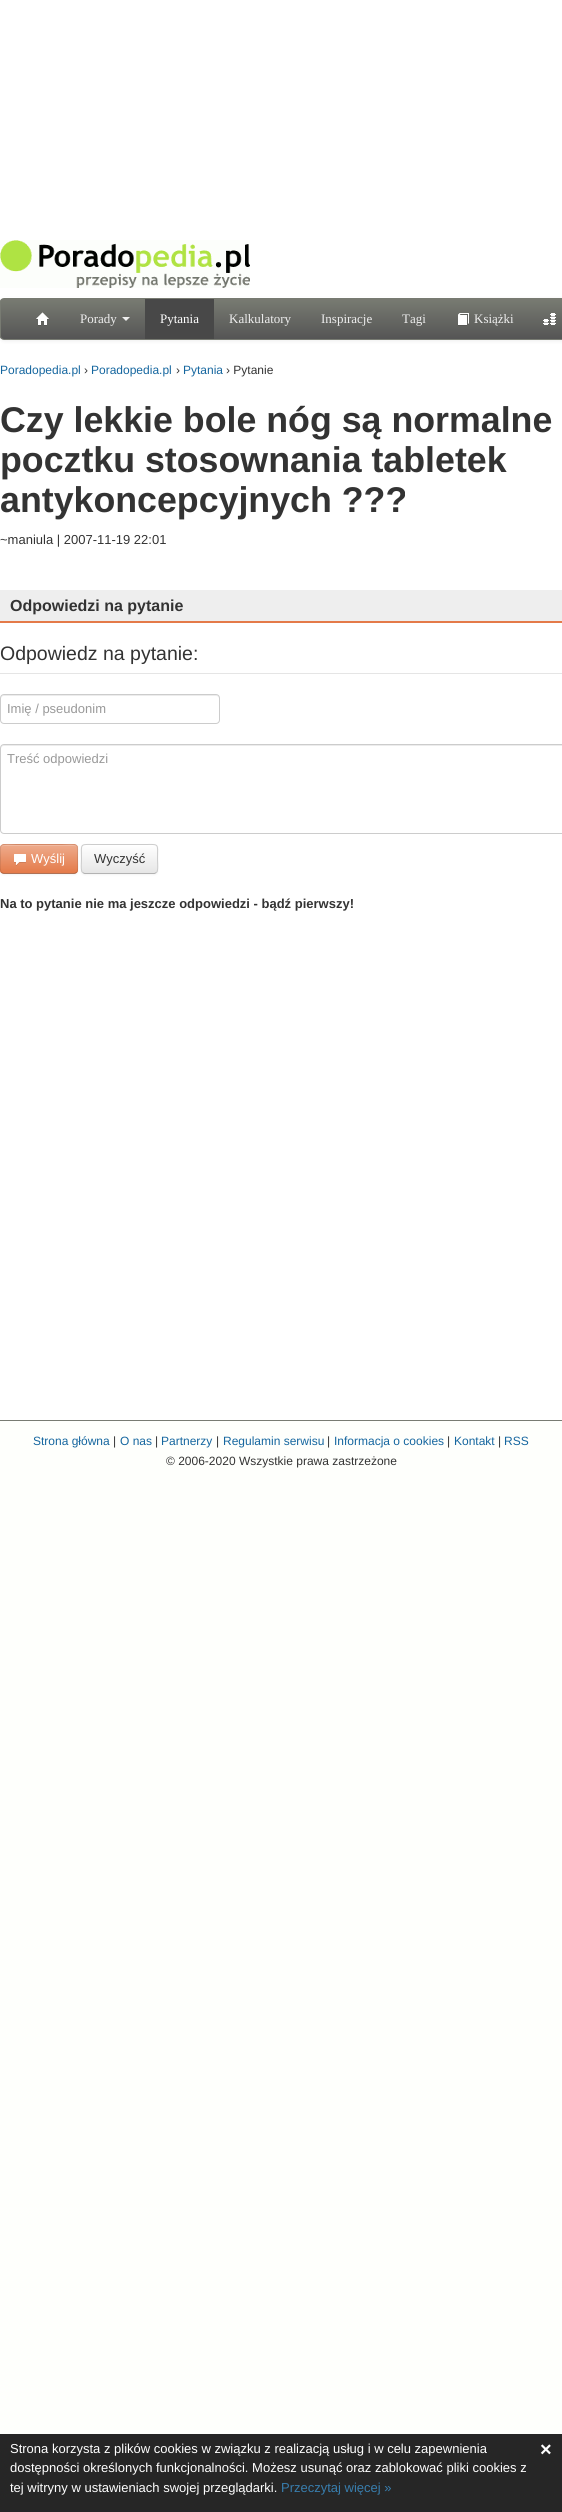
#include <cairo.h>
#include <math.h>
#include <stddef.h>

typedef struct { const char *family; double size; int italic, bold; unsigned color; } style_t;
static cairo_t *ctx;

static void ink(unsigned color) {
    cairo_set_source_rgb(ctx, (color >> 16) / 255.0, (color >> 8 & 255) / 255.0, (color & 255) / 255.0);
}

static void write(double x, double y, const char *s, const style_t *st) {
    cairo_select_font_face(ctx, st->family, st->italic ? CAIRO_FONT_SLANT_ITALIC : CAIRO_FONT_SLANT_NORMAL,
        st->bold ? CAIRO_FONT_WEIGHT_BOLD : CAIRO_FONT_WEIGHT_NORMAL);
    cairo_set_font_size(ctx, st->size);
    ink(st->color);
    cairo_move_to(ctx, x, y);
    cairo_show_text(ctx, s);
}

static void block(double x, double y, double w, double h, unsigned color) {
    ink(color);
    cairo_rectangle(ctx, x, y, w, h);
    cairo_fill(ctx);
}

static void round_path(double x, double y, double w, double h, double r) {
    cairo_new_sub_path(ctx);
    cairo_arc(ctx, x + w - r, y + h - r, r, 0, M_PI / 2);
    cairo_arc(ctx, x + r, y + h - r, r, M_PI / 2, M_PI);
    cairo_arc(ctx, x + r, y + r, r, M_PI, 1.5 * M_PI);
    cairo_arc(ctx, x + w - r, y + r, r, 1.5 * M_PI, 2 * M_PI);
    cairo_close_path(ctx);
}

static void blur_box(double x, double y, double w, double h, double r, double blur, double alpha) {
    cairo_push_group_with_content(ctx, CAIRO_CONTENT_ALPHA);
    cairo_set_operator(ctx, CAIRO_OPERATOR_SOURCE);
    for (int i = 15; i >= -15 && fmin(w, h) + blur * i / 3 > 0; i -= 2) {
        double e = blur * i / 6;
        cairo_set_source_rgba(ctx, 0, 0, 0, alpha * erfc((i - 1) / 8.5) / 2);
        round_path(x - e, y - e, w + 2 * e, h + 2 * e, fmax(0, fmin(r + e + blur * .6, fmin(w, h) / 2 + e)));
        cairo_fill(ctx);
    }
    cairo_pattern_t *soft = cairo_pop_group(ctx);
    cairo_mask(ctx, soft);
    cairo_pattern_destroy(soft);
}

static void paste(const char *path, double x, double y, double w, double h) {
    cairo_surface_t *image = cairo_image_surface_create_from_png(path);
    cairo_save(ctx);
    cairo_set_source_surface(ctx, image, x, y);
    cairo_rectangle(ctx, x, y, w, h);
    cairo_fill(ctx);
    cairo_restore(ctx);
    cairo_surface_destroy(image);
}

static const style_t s1 = {"Liberation Serif", 13, 0, 0, 0xeeeeee};
static const style_t s2 = {"Liberation Serif", 13, 0, 0, 0xffffff};
static const style_t s3 = {"Liberation Sans", 12, 0, 0, 0x15669f};
static const style_t s4 = {"Liberation Sans", 12, 0, 0, 0x333333};
static const style_t s5 = {"Liberation Sans", 35.75, 0, 1, 0x333333};
static const style_t s6 = {"Liberation Sans", 13, 0, 0, 0x333333};
static const style_t s7 = {"Liberation Sans", 16, 0, 1, 0x333333};
static const style_t s8 = {"Liberation Sans", 19.5, 0, 0, 0x333333};
static const style_t s9 = {"Liberation Sans", 13, 0, 0, 0x999999};
static const style_t s10 = {"Liberation Sans", 13, 0, 0, 0xffffff};
static const style_t s11 = {"Liberation Sans", 13, 0, 1, 0x333333};
static const style_t s12 = {"Liberation Sans", 13, 0, 0, 0x387dad};
static const style_t s13 = {"Liberation Sans", 20, 0, 1, 0xffffff};

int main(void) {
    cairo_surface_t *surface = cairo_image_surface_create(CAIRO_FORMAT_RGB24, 562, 2512);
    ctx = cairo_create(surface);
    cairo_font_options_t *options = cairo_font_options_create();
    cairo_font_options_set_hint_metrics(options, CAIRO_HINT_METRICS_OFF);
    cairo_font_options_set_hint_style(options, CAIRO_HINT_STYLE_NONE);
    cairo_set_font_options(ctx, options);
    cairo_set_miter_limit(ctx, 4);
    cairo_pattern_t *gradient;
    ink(0xfefffc);
    cairo_paint(ctx);
    block(0, 0, 562, 1420, 0xffffff);
    block(0, 1420, 562, 1, 0x787b72);
    ink(0x000000);
    blur_box(0, 299, 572, 42, 4, 2, 0.07);
    block(2, 297, 458, 1, 0xffffff);
    paste("pic1.png", 0, 240, 250, 48);
    cairo_save(ctx);
    round_path(0, 298, 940, 42, 4);
    cairo_clip(ctx);
    gradient = cairo_pattern_create_linear(470, 299, 470, 339);
    cairo_pattern_add_color_stop_rgba(gradient, 0, 0.471, 0.482, 0.447, 1);
    cairo_pattern_add_color_stop_rgba(gradient, 1, 0.333, 0.333, 0.333, 1);
    cairo_set_source(ctx, gradient);
    cairo_pattern_destroy(gradient);
    cairo_rectangle(ctx, 0, 299, 562, 40);
    cairo_fill(ctx);
    cairo_restore(ctx);
    round_path(0.5, 298.5, 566, 41, 3.5);
    ink(0x787b72);
    cairo_set_line_width(ctx, 1);
    cairo_stroke(ctx);
    paste("pic2.png", 36, 312, 13, 14);
    write(80, 323, "Porady", &s1);
    cairo_new_path(ctx);
    cairo_move_to(ctx, 122, 317);
    cairo_line_to(ctx, 130, 317);
    cairo_line_to(ctx, 126, 321);
    cairo_close_path(ctx);
    cairo_fill(ctx);
    block(145, 299, 69, 40, 0x484848);
    write(160, 323, "Pytania", &s2);
    write(229, 323, "Kalkulatory", &s1);
    write(321, 323, "Inspiracje", &s1);
    write(402, 323, "Tagi", &s1);
    paste("pic3.png", 458, 313, 11, 13);
    write(474, 323, "Książki", &s1);
    paste("pic4.png", 543, 313, 13, 12);
    write(0, 374, "Poradopedia.pl", &s3);
    write(84, 374, "›", &s4);
    write(91, 374, "Poradopedia.pl", &s3);
    write(176, 374, "›", &s4);
    write(183, 374, "Pytania", &s3);
    write(226, 374, "› Pytanie", &s4);
    write(0, 432, "Czy lekkie bole nóg są normalne", &s5);
    write(0, 472, "pocztku stosownania tabletek", &s5);
    write(0, 512, "antykoncepcyjnych ?\077?", &s5);
    write(0, 544, "~maniula | 2007-11-19 22:01", &s6);
    block(0, 590, 562, 31, 0xeeeeee);
    block(0, 621, 562, 2, 0xe47a49);
    write(10, 611, "Odpowiedzi na pytanie", &s7);
    block(0, 673, 562, 1, 0xe5e5e5);
    write(0, 660, "Odpowiedz na pytanie:", &s8);
    ink(0xececec);
    cairo_new_path(ctx);
    cairo_move_to(ctx, 4, 696);
    cairo_line_to(ctx, 216, 696);
    cairo_curve_to(ctx, 218, 696, 219, 697, 219, 699);
    cairo_line_to(ctx, 219, 698);
    cairo_curve_to(ctx, 219, 696, 218, 695, 216, 695);
    cairo_line_to(ctx, 4, 695);
    cairo_curve_to(ctx, 2, 695, 1, 696, 1, 698);
    cairo_line_to(ctx, 1, 699);
    cairo_curve_to(ctx, 1, 697, 2, 696, 4, 696);
    cairo_close_path(ctx);
    cairo_fill(ctx);
    round_path(0.5, 694.5, 219, 29, 3.5);
    ink(0xcccccc);
    cairo_stroke(ctx);
    write(7, 713, "Imię / pseudonim", &s9);
    ink(0xececec);
    cairo_new_path(ctx);
    cairo_move_to(ctx, 4, 746);
    cairo_line_to(ctx, 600, 746);
    cairo_curve_to(ctx, 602, 746, 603, 747, 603, 749);
    cairo_line_to(ctx, 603, 748);
    cairo_curve_to(ctx, 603, 746, 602, 745, 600, 745);
    cairo_line_to(ctx, 4, 745);
    cairo_curve_to(ctx, 2, 745, 1, 746, 1, 748);
    cairo_line_to(ctx, 1, 749);
    cairo_curve_to(ctx, 1, 747, 2, 746, 4, 746);
    cairo_close_path(ctx);
    cairo_fill(ctx);
    round_path(0.5, 744.5, 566, 89, 3.5);
    ink(0xcccccc);
    cairo_stroke(ctx);
    write(7, 763, "Treść odpowiedzi", &s9);
    ink(0x000000);
    blur_box(0, 845, 78, 30, 4, 1, 0.05);
    ink(0xea9771);
    round_path(0, 844, 78, 30, 4);
    cairo_fill(ctx);
    cairo_save(ctx);
    round_path(0, 844, 78, 30, 4);
    cairo_clip(ctx);
    gradient = cairo_pattern_create_linear(39, 845, 39, 873);
    cairo_pattern_add_color_stop_rgba(gradient, 0, 0.933, 0.671, 0.549, 1);
    cairo_pattern_add_color_stop_rgba(gradient, 1, 0.894, 0.478, 0.286, 1);
    cairo_set_source(ctx, gradient);
    cairo_pattern_destroy(gradient);
    cairo_rectangle(ctx, 0, 845, 78, 28);
    cairo_fill(ctx);
    cairo_restore(ctx);
    cairo_set_source_rgba(ctx, 1, 1, 1, 0.2);
    cairo_new_path(ctx);
    cairo_move_to(ctx, 4, 846);
    cairo_line_to(ctx, 74, 846);
    cairo_curve_to(ctx, 76, 846, 77, 847, 77, 849);
    cairo_curve_to(ctx, 77, 842, 66, 845, 62, 845);
    cairo_line_to(ctx, 16, 845);
    cairo_curve_to(ctx, 12, 845, 1, 842, 1, 849);
    cairo_curve_to(ctx, 1, 847, 2, 846, 4, 846);
    cairo_close_path(ctx);
    cairo_fill(ctx);
    cairo_new_path(ctx);
    cairo_move_to(ctx, 76.5, 872.5);
    cairo_curve_to(ctx, 76, 873, 75, 873.5, 74, 873.5);
    cairo_line_to(ctx, 4, 873.5);
    cairo_curve_to(ctx, 3, 873.5, 2, 873, 1.5, 872.5);
    cairo_set_source_rgba(ctx, 0, 0, 0, 0.25);
    cairo_stroke(ctx);
    cairo_new_path(ctx);
    cairo_move_to(ctx, 1.5, 872.5);
    cairo_curve_to(ctx, -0.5, 870.5, 0.5, 862, 0.5, 859);
    cairo_curve_to(ctx, 0.5, 842.5, -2, 844.5, 15.5, 844.5);
    cairo_line_to(ctx, 62.5, 844.5);
    cairo_curve_to(ctx, 80, 844.5, 77.5, 842.5, 77.5, 859);
    cairo_curve_to(ctx, 77.5, 862, 78.5, 870.5, 76.5, 872.5);
    cairo_set_source_rgba(ctx, 0, 0, 0, 0.1);
    cairo_stroke(ctx);
    paste("pic5.png", 14, 854, 12, 12);
    write(31, 863, "Wyślij", &s10);
    ink(0x000000);
    blur_box(81, 845, 77, 30, 4, 1, 0.05);
    cairo_save(ctx);
    round_path(81, 844, 77, 30, 4);
    cairo_clip(ctx);
    gradient = cairo_pattern_create_linear(120, 845, 120, 873);
    cairo_pattern_add_color_stop_rgba(gradient, 0, 1, 1, 1, 1);
    cairo_pattern_add_color_stop_rgba(gradient, 1, 0.902, 0.902, 0.902, 1);
    cairo_set_source(ctx, gradient);
    cairo_pattern_destroy(gradient);
    cairo_rectangle(ctx, 81, 845, 77, 28);
    cairo_fill(ctx);
    cairo_restore(ctx);
    cairo_new_path(ctx);
    cairo_move_to(ctx, 156.5, 872.5);
    cairo_line_to(ctx, 154.5, 873.5);
    cairo_line_to(ctx, 84.5, 873.5);
    cairo_line_to(ctx, 82.5, 872.5);
    ink(0xb3b3b3);
    cairo_stroke(ctx);
    cairo_new_path(ctx);
    cairo_move_to(ctx, 82.5, 872.5);
    cairo_curve_to(ctx, 80.5, 870.5, 81.5, 862, 81.5, 859);
    cairo_curve_to(ctx, 81.5, 842.5, 79, 844.5, 96.5, 844.5);
    cairo_line_to(ctx, 142.5, 844.5);
    cairo_curve_to(ctx, 160, 844.5, 157.5, 842.5, 157.5, 859);
    cairo_curve_to(ctx, 157.5, 862, 158.5, 870.5, 156.5, 872.5);
    ink(0xcccccc);
    cairo_stroke(ctx);
    write(94, 863, "Wyczyść", &s6);
    write(0, 908, "Na to pytanie nie ma jeszcze odpowiedzi - bądź pierwszy!", &s11);
    write(33, 1445, "Strona główna", &s3);
    write(113, 1445, "|", &s4);
    write(120, 1445, "O nas", &s3);
    write(155, 1445, "|", &s4);
    write(161, 1445, "Partnerzy", &s3);
    write(216, 1445, "|", &s4);
    write(223, 1445, "Regulamin serwisu", &s3);
    write(327, 1445, "|", &s4);
    write(334, 1445, "Informacja o cookies", &s3);
    write(447, 1445, "|", &s4);
    write(454, 1445, "Kontakt", &s3);
    write(498, 1445, "|", &s4);
    write(504, 1445, "RSS", &s3);
    write(166, 1465, "© 2006-2020 Wszystkie prawa zastrzeżone", &s4);
    block(0, 2434, 562, 78, 0x262626);
    write(10, 2453, "Strona korzysta z plików cookies w związku z realizacją usług i w celu zapewnienia", &s10);
    write(10, 2472, "dostępności określonych funkcjonalności. Możesz usunąć oraz zablokować pliki cookies z", &s10);
    write(10, 2492, "tej witryny w ustawieniach swojej przeglądarki.", &s10);
    write(281, 2492, "Przeczytaj więcej »", &s12);
    write(540, 2456, "×", &s13);
    cairo_surface_write_to_png(surface, "screenshot.png");
    cairo_font_options_destroy(options);
    cairo_destroy(ctx);
    cairo_surface_destroy(surface);
    return 0;
}
